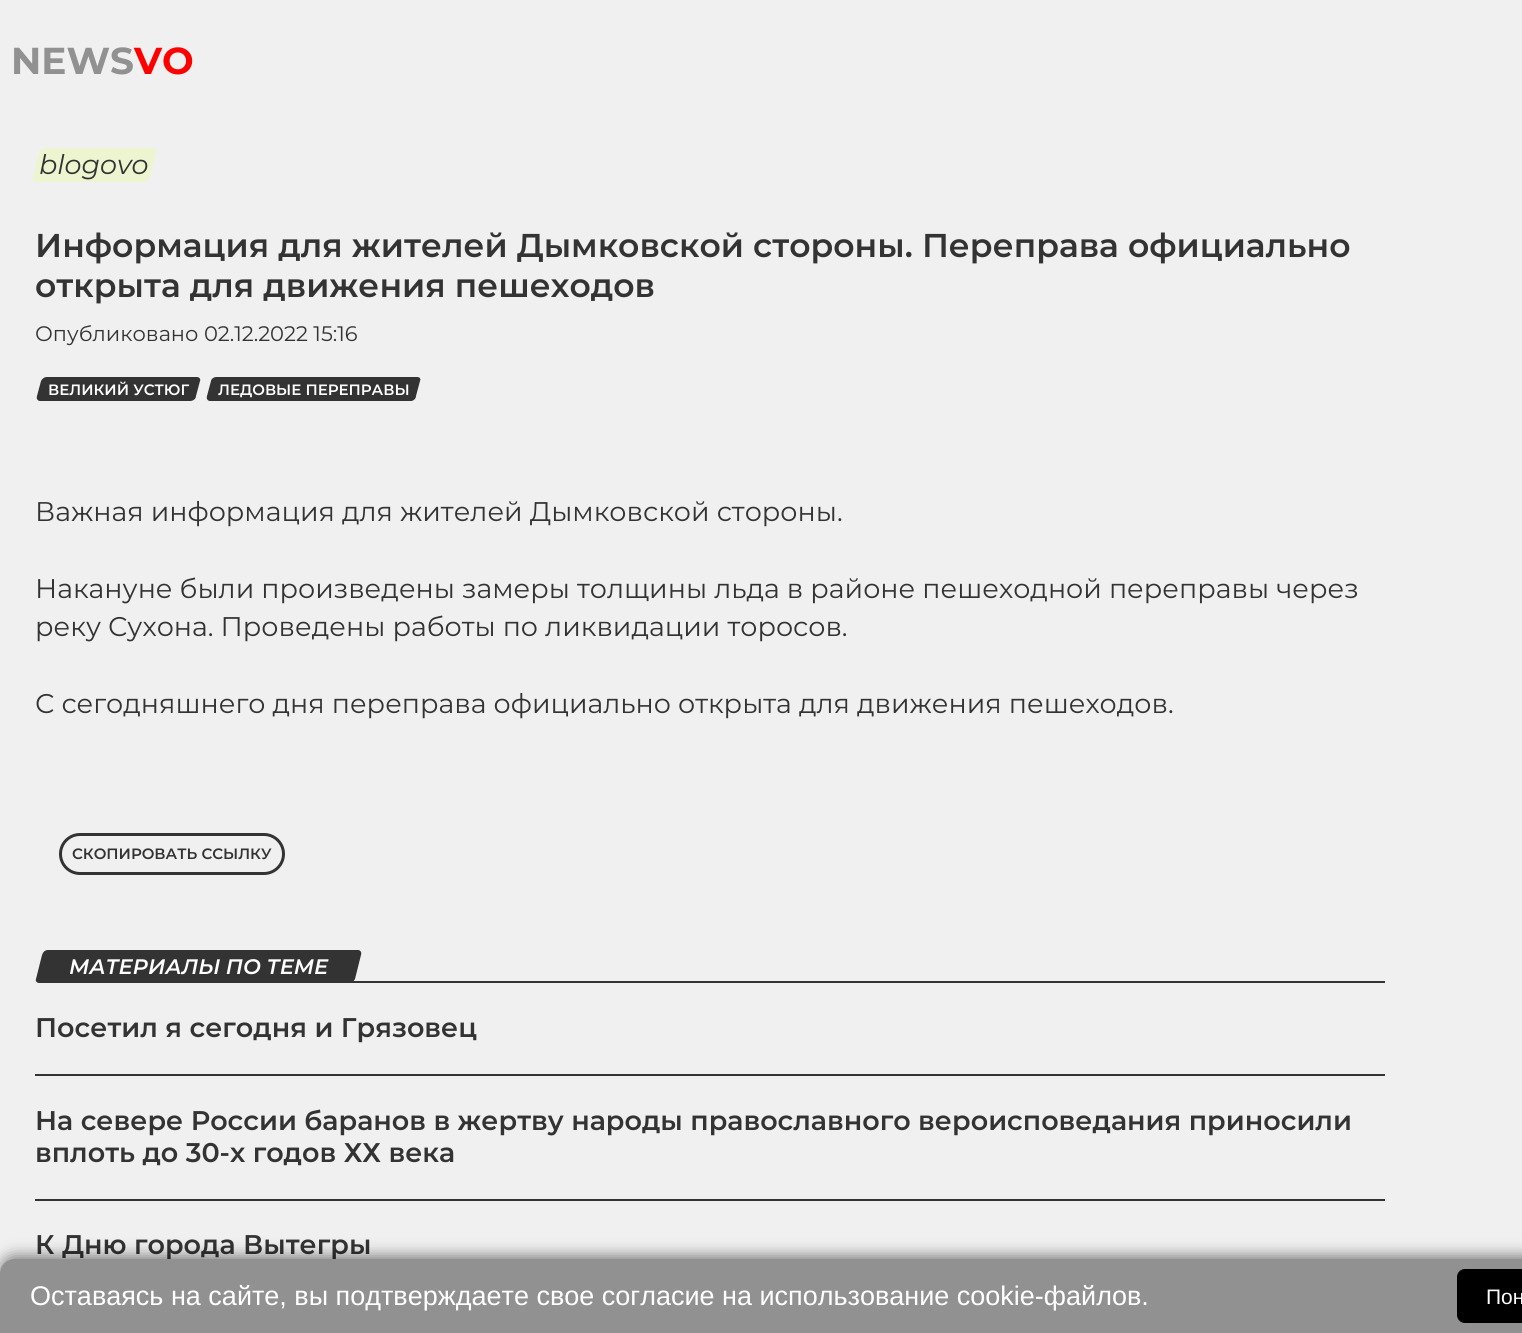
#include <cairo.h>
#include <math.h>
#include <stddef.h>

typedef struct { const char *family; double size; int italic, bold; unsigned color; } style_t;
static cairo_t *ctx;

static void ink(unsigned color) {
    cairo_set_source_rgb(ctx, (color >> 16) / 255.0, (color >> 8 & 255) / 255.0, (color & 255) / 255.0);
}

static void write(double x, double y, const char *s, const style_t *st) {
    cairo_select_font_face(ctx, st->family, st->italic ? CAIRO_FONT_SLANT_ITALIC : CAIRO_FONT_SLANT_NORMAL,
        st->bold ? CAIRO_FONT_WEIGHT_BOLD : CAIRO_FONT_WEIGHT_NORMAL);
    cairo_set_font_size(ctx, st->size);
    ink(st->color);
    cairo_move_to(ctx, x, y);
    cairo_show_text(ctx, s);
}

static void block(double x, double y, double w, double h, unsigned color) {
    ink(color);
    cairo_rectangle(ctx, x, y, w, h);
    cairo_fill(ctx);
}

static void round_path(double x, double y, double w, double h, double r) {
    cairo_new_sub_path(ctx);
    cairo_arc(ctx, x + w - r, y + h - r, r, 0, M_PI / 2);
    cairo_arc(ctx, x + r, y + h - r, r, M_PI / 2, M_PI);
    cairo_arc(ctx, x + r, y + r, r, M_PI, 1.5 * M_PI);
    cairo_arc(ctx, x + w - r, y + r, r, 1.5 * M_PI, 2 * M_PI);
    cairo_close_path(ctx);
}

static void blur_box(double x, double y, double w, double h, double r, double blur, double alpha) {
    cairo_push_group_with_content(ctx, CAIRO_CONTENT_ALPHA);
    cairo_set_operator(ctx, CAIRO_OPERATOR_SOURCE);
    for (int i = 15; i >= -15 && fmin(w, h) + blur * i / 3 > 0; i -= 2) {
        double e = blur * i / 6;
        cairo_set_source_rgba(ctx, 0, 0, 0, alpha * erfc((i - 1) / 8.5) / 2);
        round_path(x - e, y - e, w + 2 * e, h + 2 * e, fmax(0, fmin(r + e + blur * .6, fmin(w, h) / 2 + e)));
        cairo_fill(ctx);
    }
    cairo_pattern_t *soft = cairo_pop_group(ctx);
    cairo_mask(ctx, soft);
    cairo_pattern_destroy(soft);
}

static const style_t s1 = {"Montserrat", 37.5, 0, 1, 0x919191};
static const style_t s2 = {"Montserrat", 37.5, 0, 1, 0xff0000};
static const style_t s3 = {"Montserrat", 27, 1, 0, 0x333333};
static const style_t s4 = {"Montserrat SemiBold", 33, 0, 0, 0x333333};
static const style_t s5 = {"Montserrat", 21, 0, 0, 0x333333};
static const style_t s6 = {"Montserrat SemiBold", 15, 0, 0, 0xffffff};
static const style_t s7 = {"Montserrat", 27, 0, 0, 0x333333};
static const style_t s8 = {"Montserrat SemiBold", 15, 0, 0, 0x333333};
static const style_t s9 = {"Montserrat SemiBold", 21, 1, 0, 0xffffff};
static const style_t s10 = {"Montserrat SemiBold", 27, 0, 0, 0x333333};
static const style_t s11 = {"Liberation Sans", 27, 0, 0, 0xffffff};
static const style_t s12 = {"Liberation Sans", 21, 0, 0, 0xffffff};

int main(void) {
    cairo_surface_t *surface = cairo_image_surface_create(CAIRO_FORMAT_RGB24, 1522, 1333);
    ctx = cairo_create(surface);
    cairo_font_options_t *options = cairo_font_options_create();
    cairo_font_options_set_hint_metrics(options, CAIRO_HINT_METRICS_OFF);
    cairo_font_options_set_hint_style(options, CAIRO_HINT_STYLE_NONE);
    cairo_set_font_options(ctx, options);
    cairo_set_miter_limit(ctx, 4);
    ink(0xf0f0f0);
    cairo_paint(ctx);
    write(11, 74, "NEWS", &s1);
    write(134, 74, "VO", &s2);
    ink(0xedf5d0);
    cairo_new_path(ctx);
    cairo_move_to(ctx, 45, 148);
    cairo_line_to(ctx, 153, 148);
    cairo_curve_to(ctx, 155, 148, 157, 151, 156, 153);
    cairo_line_to(ctx, 150, 177);
    cairo_curve_to(ctx, 149, 179, 147, 182, 144, 182);
    cairo_line_to(ctx, 36, 182);
    cairo_curve_to(ctx, 34, 182, 32, 179, 33, 177);
    cairo_line_to(ctx, 39, 153);
    cairo_curve_to(ctx, 40, 151, 42, 148, 45, 148);
    cairo_close_path(ctx);
    cairo_fill(ctx);
    write(39, 174, "blogovo", &s3);
    write(35, 257, "Информация для жителей Дымковской стороны. Переправа официально", &s4);
    write(35, 297, "открыта для движения пешеходов", &s4);
    write(35, 341, "Опубликовано 02.12.2022 15:16", &s5);
    cairo_new_path(ctx);
    cairo_move_to(ctx, 47, 377);
    cairo_line_to(ctx, 197, 377);
    cairo_curve_to(ctx, 199, 377, 201, 379, 200, 381);
    cairo_line_to(ctx, 196, 396);
    cairo_curve_to(ctx, 196, 399, 193, 401, 190, 401);
    cairo_line_to(ctx, 40, 401);
    cairo_curve_to(ctx, 38, 401, 36, 399, 37, 396);
    cairo_line_to(ctx, 41, 381);
    cairo_curve_to(ctx, 42, 379, 44, 377, 47, 377);
    cairo_close_path(ctx);
    cairo_fill(ctx);
    write(48, 395, "ВЕЛИКИЙ УСТЮГ", &s6);
    ink(0x333333);
    cairo_new_path(ctx);
    cairo_move_to(ctx, 216, 377);
    cairo_line_to(ctx, 417, 377);
    cairo_curve_to(ctx, 420, 377, 421, 379, 420, 381);
    cairo_line_to(ctx, 416, 396);
    cairo_curve_to(ctx, 416, 399, 413, 401, 411, 401);
    cairo_line_to(ctx, 210, 401);
    cairo_curve_to(ctx, 208, 401, 206, 399, 207, 396);
    cairo_line_to(ctx, 211, 381);
    cairo_curve_to(ctx, 211, 379, 214, 377, 216, 377);
    cairo_close_path(ctx);
    cairo_fill(ctx);
    write(218, 395, "ЛЕДОВЫЕ ПЕРЕПРАВЫ", &s6);
    write(35, 521, "Важная информация для жителей Дымковской стороны.", &s7);
    write(35, 598, "Накануне были произведены замеры толщины льда в районе пешеходной переправы через", &s7);
    write(35, 636, "реку Сухона. Проведены работы по ликвидации торосов.", &s7);
    write(35, 713, "С сегодняшнего дня переправа официально открыта для движения пешеходов.", &s7);
    round_path(60.5, 834.5, 223, 39, 19.5);
    cairo_set_line_width(ctx, 3);
    cairo_stroke(ctx);
    write(72, 859, "СКОПИРОВАТЬ ССЫЛКУ", &s8);
    cairo_new_path(ctx);
    cairo_move_to(ctx, 48, 950);
    cairo_line_to(ctx, 358, 950);
    cairo_curve_to(ctx, 360, 950, 362, 952, 361, 955);
    cairo_line_to(ctx, 355, 979);
    cairo_curve_to(ctx, 354, 981, 352, 983, 349, 983);
    cairo_line_to(ctx, 39, 983);
    cairo_curve_to(ctx, 37, 983, 35, 981, 36, 979);
    cairo_line_to(ctx, 42, 955);
    cairo_curve_to(ctx, 43, 952, 45, 950, 48, 950);
    cairo_close_path(ctx);
    cairo_fill(ctx);
    write(69, 974, "МАТЕРИАЛЫ ПО ТЕМЕ", &s9);
    block(349, 981, 1036, 2, 0x333333);
    write(35, 1037, "Посетил я сегодня и Грязовец", &s10);
    block(35, 1074, 1350, 2, 0x333333);
    write(35, 1130, "На севере России баранов в жертву народы православного вероисповедания приносили", &s10);
    write(35, 1162, "вплоть до 30-х годов ХХ века", &s10);
    block(35, 1199, 1350, 2, 0x333333);
    write(35, 1254, "К Дню города Вытегры", &s10);
    ink(0x000000);
    blur_box(0, 1256, 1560, 75, 15, 7.5, 0.5);
    ink(0x919191);
    cairo_new_path(ctx);
    cairo_move_to(ctx, 15, 1259);
    cairo_line_to(ctx, 1522, 1259);
    cairo_curve_to(ctx, 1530.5, 1259, 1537, 1265.5, 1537, 1274);
    cairo_line_to(ctx, 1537, 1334);
    cairo_line_to(ctx, 0, 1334);
    cairo_line_to(ctx, 0, 1274);
    cairo_curve_to(ctx, 0, 1265.5, 6.5, 1259, 15, 1259);
    cairo_close_path(ctx);
    cairo_fill(ctx);
    write(30, 1305, "Оставаясь на сайте, вы подтверждаете свое согласие на использование cookie-файлов.", &s11);
    ink(0x000000);
    round_path(1457, 1269, 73, 54, 8);
    cairo_fill(ctx);
    write(1486, 1304, "Пон", &s12);
    cairo_surface_write_to_png(surface, "screenshot.png");
    cairo_font_options_destroy(options);
    cairo_destroy(ctx);
    cairo_surface_destroy(surface);
    return 0;
}
